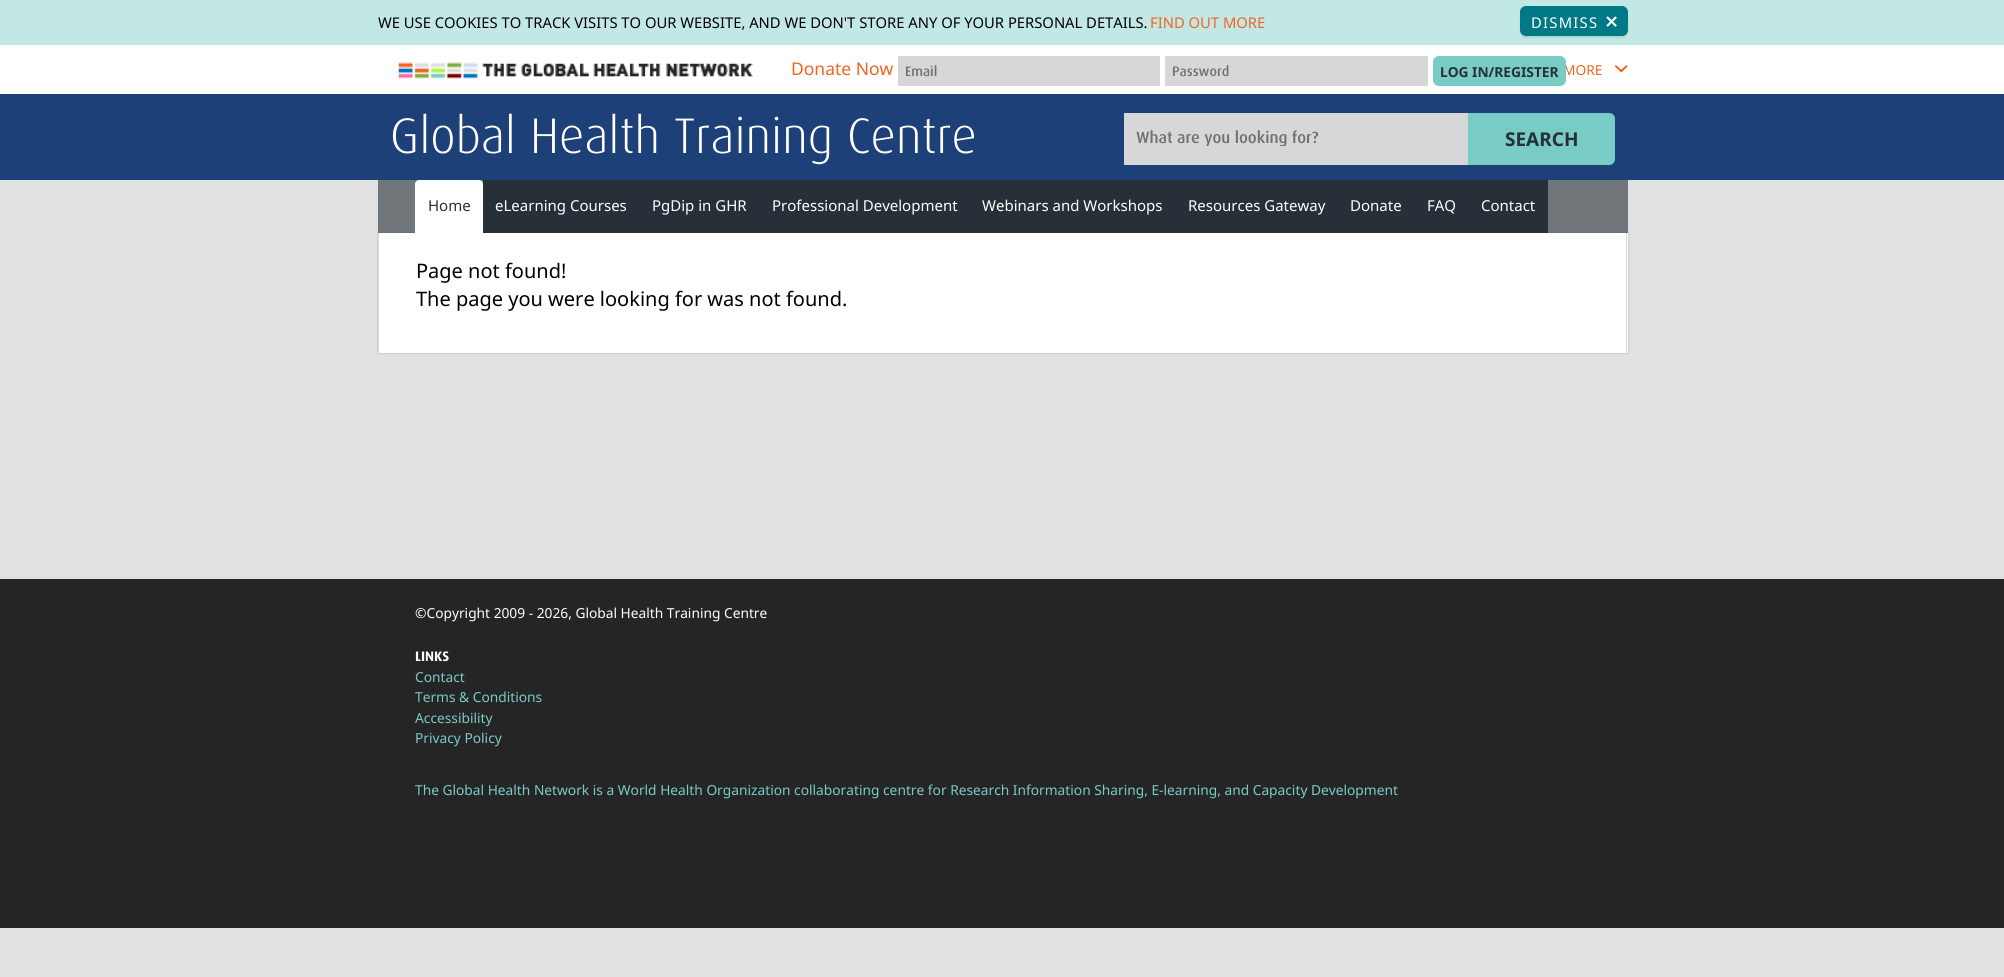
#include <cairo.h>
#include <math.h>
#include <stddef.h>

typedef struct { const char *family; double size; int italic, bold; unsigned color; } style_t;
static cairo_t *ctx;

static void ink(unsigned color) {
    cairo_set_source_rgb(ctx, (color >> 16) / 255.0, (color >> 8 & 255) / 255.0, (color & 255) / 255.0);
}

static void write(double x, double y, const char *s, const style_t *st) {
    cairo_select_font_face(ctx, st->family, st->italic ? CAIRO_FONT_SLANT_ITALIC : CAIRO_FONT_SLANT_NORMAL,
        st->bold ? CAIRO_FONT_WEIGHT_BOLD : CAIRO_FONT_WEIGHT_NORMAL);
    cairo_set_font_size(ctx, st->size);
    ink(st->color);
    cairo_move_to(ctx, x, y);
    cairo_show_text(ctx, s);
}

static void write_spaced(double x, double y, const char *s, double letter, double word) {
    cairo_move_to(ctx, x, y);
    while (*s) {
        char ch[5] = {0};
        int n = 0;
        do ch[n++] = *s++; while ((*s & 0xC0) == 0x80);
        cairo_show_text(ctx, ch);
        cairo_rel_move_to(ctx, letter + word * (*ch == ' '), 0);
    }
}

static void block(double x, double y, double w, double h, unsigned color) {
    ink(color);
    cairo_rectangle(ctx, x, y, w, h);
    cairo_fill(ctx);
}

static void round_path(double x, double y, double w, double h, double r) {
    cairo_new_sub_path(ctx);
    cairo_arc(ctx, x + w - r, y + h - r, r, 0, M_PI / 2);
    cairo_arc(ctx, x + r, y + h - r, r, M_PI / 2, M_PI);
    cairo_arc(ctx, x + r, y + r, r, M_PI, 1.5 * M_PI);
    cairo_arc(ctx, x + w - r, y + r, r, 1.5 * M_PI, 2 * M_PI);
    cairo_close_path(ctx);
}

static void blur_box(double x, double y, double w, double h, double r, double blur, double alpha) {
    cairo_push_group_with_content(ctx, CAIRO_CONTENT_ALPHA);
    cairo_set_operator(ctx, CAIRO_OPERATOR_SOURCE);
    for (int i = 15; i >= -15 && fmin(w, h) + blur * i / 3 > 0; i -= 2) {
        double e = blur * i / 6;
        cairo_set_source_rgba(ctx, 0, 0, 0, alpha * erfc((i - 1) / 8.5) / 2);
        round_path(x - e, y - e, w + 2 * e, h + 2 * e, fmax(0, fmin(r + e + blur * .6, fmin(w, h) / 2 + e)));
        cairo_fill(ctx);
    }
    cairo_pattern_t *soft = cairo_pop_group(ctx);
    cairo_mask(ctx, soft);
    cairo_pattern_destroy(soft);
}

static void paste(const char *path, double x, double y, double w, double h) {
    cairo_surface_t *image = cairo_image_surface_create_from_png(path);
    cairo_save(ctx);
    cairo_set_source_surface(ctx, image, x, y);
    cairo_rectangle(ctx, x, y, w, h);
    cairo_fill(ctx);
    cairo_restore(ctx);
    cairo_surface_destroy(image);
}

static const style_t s1 = {"Noto Sans", 14.77, 0, 0, 0x000000};
static const style_t s2 = {"Noto Sans", 14.77, 0, 0, 0xf16421};
static const style_t s3 = {"Noto Sans", 17.5, 0, 0, 0xf16421};
static const style_t s4 = {"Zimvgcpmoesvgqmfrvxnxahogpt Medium", 13.75, 0, 0, 0x707070};
static const style_t s5 = {"Noto Sans", 13.75, 0, 0, 0xf16421};
static const style_t s6 = {"Noto Sans", 13.75, 0, 1, 0x272f38};
static const style_t s7 = {"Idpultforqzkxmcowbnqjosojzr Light", 50, 0, 0, 0xffffff};
static const style_t s8 = {"Zimvgcpmoesvgqmfrvxnxahogpt Medium", 16.25, 0, 0, 0x707070};
static const style_t s9 = {"Noto Sans", 19, 0, 1, 0x272f38};
static const style_t s10 = {"Noto Sans", 15, 0, 0, 0x272f38};
static const style_t s11 = {"Noto Sans", 15, 0, 0, 0xffffff};
static const style_t s12 = {"Noto Sans", 20, 0, 0, 0x000000};
static const style_t s13 = {"Noto Sans", 13.75, 0, 0, 0xffffff};
static const style_t s14 = {"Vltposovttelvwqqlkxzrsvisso", 13.75, 0, 1, 0xffffff};
static const style_t s15 = {"Noto Sans", 13.75, 0, 0, 0x79ccc6};

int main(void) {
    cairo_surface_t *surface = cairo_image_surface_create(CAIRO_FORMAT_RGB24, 2004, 977);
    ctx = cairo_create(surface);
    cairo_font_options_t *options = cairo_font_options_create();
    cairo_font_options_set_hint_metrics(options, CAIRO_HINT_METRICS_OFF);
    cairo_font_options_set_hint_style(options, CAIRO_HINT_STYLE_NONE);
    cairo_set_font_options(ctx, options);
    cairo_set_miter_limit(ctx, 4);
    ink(0xe1e1e1);
    cairo_paint(ctx);
    block(0, 0, 2004, 45, 0xc2e8e5);
    write(378, 28, "WE USE COOKIES TO TRACK VISITS TO OUR WEBSITE, AND WE DON'T STORE ANY OF YOUR PERSONAL DETAILS.", &s1);
    write(1150, 28, "FIND OUT MORE", &s2);
    ink(0x0d1314);
    blur_box(1520, 8, 108, 30, 6, 0.5, 0.1);
    ink(0x007987);
    round_path(1520, 6, 108, 30, 6);
    cairo_fill(ctx);
    ink(0xffffff);
    write_spaced(1531, 28, "DISMISS", 1.25, 0);
    paste("pic1.png", 1606, 16, 11, 11);
    block(0, 45, 2004, 49, 0xffffff);
    paste("pic2.png", 398, 62, 355, 17);
    write(791, 75, "Donate Now", &s3);
    block(898, 56, 262, 30, 0xd7d7d7);
    write(905, 76, "Email", &s4);
    block(1165, 56, 263, 30, 0xd7d7d7);
    write(1172, 76, "Password", &s4);
    write(1563, 75, "MORE", &s5);
    ink(0x79ccc6);
    round_path(1433, 56, 133, 30, 6);
    cairo_fill(ctx);
    write(1440, 77, "LOG IN/REGISTER", &s6);
    paste("pic3.png", 1615, 65, 13, 8);
    block(0, 94, 2004, 86, 0x1e4078);
    write(390, 153, "Global Health Training Centre", &s7);
    block(1124, 113, 344, 52, 0xd7d7d7);
    cairo_save(ctx);
    cairo_rectangle(ctx, 1136, 130, 325, 16);
    cairo_clip(ctx);
    write(1136, 143, "What are you looking for?", &s8);
    cairo_restore(ctx);
    ink(0x79ccc6);
    cairo_new_path(ctx);
    cairo_move_to(ctx, 1468, 113);
    cairo_line_to(ctx, 1609, 113);
    cairo_curve_to(ctx, 1612.5, 113, 1615, 115.5, 1615, 119);
    cairo_line_to(ctx, 1615, 159);
    cairo_curve_to(ctx, 1615, 162.5, 1612.5, 165, 1609, 165);
    cairo_line_to(ctx, 1468, 165);
    cairo_close_path(ctx);
    cairo_fill(ctx);
    write(1505, 146, "SEARCH", &s9);
    ink(0x000000);
    blur_box(378, 233, 1250, 120, 0, 1, 0.2);
    cairo_set_source_rgba(ctx, 0.153, 0.184, 0.22, 0.6);
    cairo_rectangle(ctx, 378, 180, 1250, 53);
    cairo_fill(ctx);
    ink(0xffffff);
    cairo_new_path(ctx);
    cairo_move_to(ctx, 419, 180);
    cairo_line_to(ctx, 479, 180);
    cairo_curve_to(ctx, 481, 180, 483, 182, 483, 184);
    cairo_line_to(ctx, 483, 233);
    cairo_line_to(ctx, 415, 233);
    cairo_line_to(ctx, 415, 184);
    cairo_curve_to(ctx, 415, 182, 417, 180, 419, 180);
    cairo_close_path(ctx);
    cairo_fill(ctx);
    write(428, 211, "Home", &s10);
    block(483, 180, 1065, 53, 0x272f38);
    write(495, 211, "eLearning Courses", &s11);
    write(652, 211, "PgDip in GHR", &s11);
    write(772, 211, "Professional Development", &s11);
    write(982, 211, "Webinars and Workshops", &s11);
    write(1188, 211, "Resources Gateway", &s11);
    write(1350, 211, "Donate", &s11);
    write(1427, 211, "FAQ", &s11);
    write(1481, 211, "Contact", &s11);
    block(379, 233, 1249, 120, 0xffffff);
    block(1626, 233, 1, 120, 0xd7d7d7);
    block(378, 233, 1, 120, 0xd7d7d7);
    write(416, 278, "Page not found!", &s12);
    write(416, 306, "The page you were looking for was not found.", &s12);
    block(0, 579, 2004, 349, 0x252525);
    write(415, 618, "©Copyright 2009 - 2026, Global Health Training Centre", &s13);
    write(415, 661, "LINKS", &s14);
    write(415, 682, "Contact", &s15);
    write(415, 702, "Terms & Conditions", &s15);
    write(415, 723, "Accessibility", &s15);
    write(415, 743, "Privacy Policy", &s15);
    write(415, 795, "The Global Health Network is a World Health Organization collaborating centre for Research Information Sharing, E-learning, and Capacity Development", &s15);
    cairo_surface_write_to_png(surface, "screenshot.png");
    cairo_font_options_destroy(options);
    cairo_destroy(ctx);
    cairo_surface_destroy(surface);
    return 0;
}
